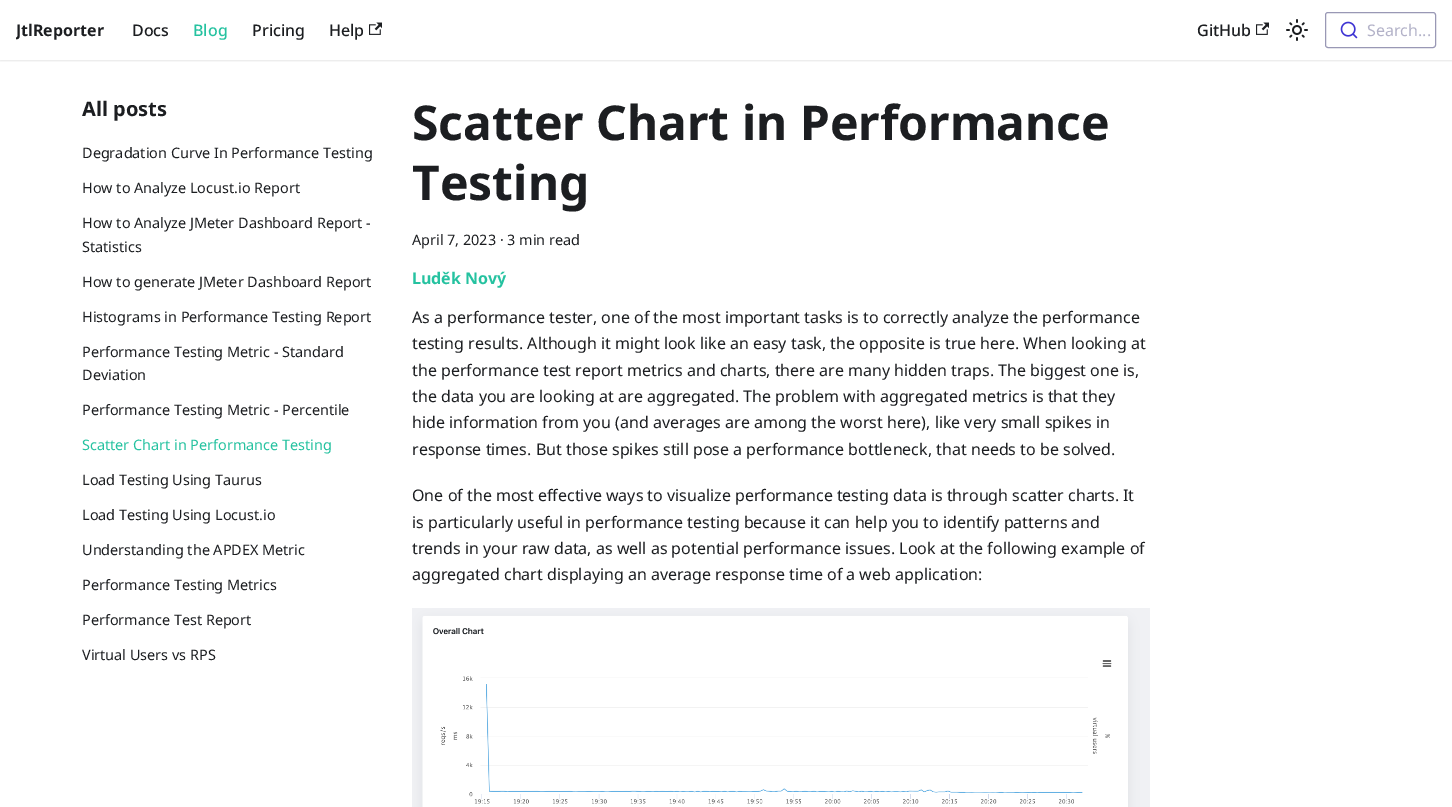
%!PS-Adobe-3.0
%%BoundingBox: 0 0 1452 807
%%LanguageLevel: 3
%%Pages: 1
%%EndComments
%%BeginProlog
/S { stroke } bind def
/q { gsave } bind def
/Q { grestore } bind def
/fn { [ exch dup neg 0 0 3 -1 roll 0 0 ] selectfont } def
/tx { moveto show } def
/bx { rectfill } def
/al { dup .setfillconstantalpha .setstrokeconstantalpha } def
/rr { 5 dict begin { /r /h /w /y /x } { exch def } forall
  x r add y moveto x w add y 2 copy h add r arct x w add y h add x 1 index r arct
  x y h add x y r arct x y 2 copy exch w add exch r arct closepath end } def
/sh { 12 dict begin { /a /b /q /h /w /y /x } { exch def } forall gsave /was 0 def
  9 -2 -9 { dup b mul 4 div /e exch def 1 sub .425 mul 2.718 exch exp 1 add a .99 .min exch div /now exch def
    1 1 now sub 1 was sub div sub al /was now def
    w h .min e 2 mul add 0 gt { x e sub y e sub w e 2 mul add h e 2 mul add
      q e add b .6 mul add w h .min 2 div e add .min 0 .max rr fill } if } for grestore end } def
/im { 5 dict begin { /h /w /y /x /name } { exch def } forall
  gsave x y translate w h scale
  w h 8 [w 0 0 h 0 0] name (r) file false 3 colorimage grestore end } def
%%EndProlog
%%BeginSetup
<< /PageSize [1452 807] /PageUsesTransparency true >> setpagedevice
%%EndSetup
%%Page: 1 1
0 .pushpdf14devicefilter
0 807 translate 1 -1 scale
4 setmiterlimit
1 setgray
0 0 1452 807 bx
q
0 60 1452 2 rectclip
0 setgray
0 1 1452 60 0 1 0.1 sh
Q
q
16 17 88 26 rectclip
/NotoSans-Bold 16 fn
0.11 0.118 0.129 setrgbcolor
(JtlReporter) 16 36 tx
Q
/NotoSans-Medium 16 fn
0.11 0.118 0.129 setrgbcolor
(Docs) 132 36 tx
0.145 0.761 0.627 setrgbcolor
(Blog) 193 36 tx
0.11 0.118 0.129 setrgbcolor
(Pricing) 252 36 tx
(Help) 329 36 tx
(image0.raw) 369 22 13 13 im
(GitHub) 1197 36 tx
(image0.raw) 1256 22 13 13 im
(image1.raw) 1286 19 22 22 im
0.6 0.596 0.71 setrgbcolor
1325.5 12.5 110 35 2.5 rr S
(image2.raw) 1340 21 18 18 im
/NotoSans-Regular 16 fn
0.702 0.698 0.784 setrgbcolor
(Search...) 1367 36 tx
/NotoSans-Bold 20 fn
0.11 0.118 0.129 setrgbcolor
(All posts) 82 116 tx
/NotoSans-Regular 14.4 fn
(Degradation Curve In Performance Testing) 82 158 tx
(How to Analyze Locust.io Report) 82 193 tx
(How to Analyze JMeter Dashboard Report -) 82 228 tx
(Statistics) 82 252 tx
(How to generate JMeter Dashboard Report) 82 287 tx
(Histograms in Performance Testing Report) 82 322 tx
(Performance Testing Metric - Standard) 82 357 tx
(Deviation) 82 380 tx
(Performance Testing Metric - Percentile) 82 415 tx
0.145 0.761 0.627 setrgbcolor
(Scatter Chart in Performance Testing) 82 450 tx
0.11 0.118 0.129 setrgbcolor
(Load Testing Using Taurus) 82 485 tx
(Load Testing Using Locust.io) 82 520 tx
(Understanding the APDEX Metric) 82 555 tx
(Performance Testing Metrics) 82 590 tx
(Performance Test Report) 82 625 tx
(Virtual Users vs RPS) 82 660 tx
/NotoSans-Bold 48 fn
(Scatter Chart in Performance) 412 140 tx
(Testing) 412 200 tx
/NotoSans-Regular 14.4 fn
(April 7, 2023 · 3 min read) 412 245 tx
/NotoSans-Bold 16 fn
0.145 0.761 0.627 setrgbcolor
(Luděk Nový) 412 284 tx
/NotoSans-Regular 16 fn
0.11 0.118 0.129 setrgbcolor
(As a performance tester, one of the most important tasks is to correctly analyze the performance) 412 323 tx
(testing results. Although it might look like an easy task, the opposite is true here. When looking at) 412 349 tx
(the performance test report metrics and charts, there are many hidden traps. The biggest one is,) 412 376 tx
(the data you are looking at are aggregated. The problem with aggregated metrics is that they) 412 402 tx
(hide information from you \(and averages are among the worst here\), like very small spikes in) 412 428 tx
(response times. But those spikes still pose a performance bottleneck, that needs to be solved.) 412 455 tx
(One of the most effective ways to visualize performance testing data is through scatter charts. It) 412 501 tx
(is particularly useful in performance testing because it can help you to identify patterns and) 412 528 tx
(trends in your raw data, as well as potential performance issues. Look at the following example of) 412 554 tx
(aggregated chart displaying an average response time of a web application:) 412 580 tx
(image3.raw) 412 608 738 199 im
.poppdf14devicefilter showpage
%%EOF
